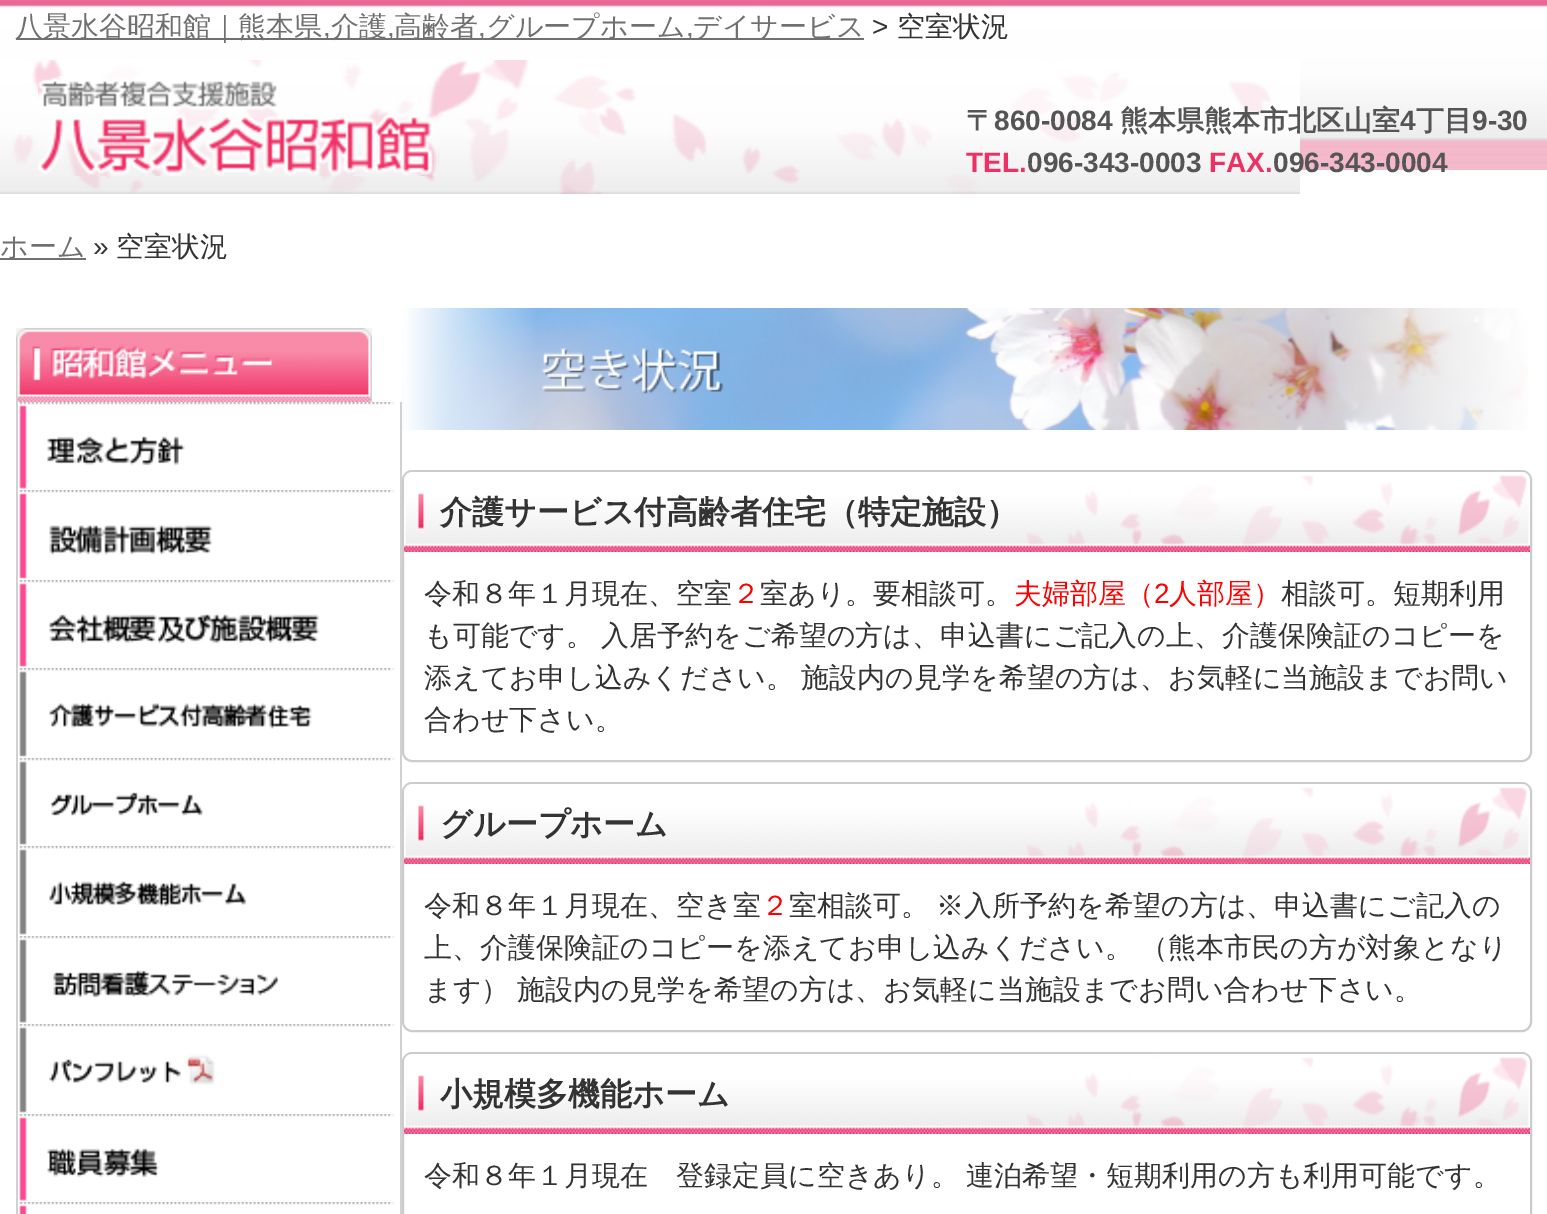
%!PS-Adobe-3.0
%%BoundingBox: 0 0 1547 1214
%%LanguageLevel: 3
%%Pages: 1
%%EndComments
%%BeginProlog
/m { moveto } bind def
/S { stroke } bind def
/w { setlinewidth } bind def
/fn { [ exch dup neg 0 0 3 -1 roll 0 0 ] selectfont } def
/tx { moveto show } def
/bx { rectfill } def
/al { dup .setfillconstantalpha .setstrokeconstantalpha } def
/rr { 5 dict begin { /r /h /w /y /x } { exch def } forall
  x r add y moveto x w add y 2 copy h add r arct x w add y h add x 1 index r arct
  x y h add x y r arct x y 2 copy exch w add exch r arct closepath end } def
/im { 5 dict begin { /h /w /y /x /name } { exch def } forall
  gsave x y translate w h scale
  w h 8 [w 0 0 h 0 0] name (r) file false 3 colorimage grestore end } def
%%EndProlog
%%BeginSetup
<< /PageSize [1547 1214] /PageUsesTransparency true >> setpagedevice
%%EndSetup
%%Page: 1 1
0 .pushpdf14devicefilter
0 1214 translate 1 -1 scale
4 setmiterlimit
1 setgray
0 0 1547 1214 bx
(image0.raw) 0 0 1547 170 im
0.1 al
0 0 1547 7 bx
1 al
0.443 0.439 0.443 setrgbcolor
16 38 848 2 bx
/WenQuanYiZenHei-Medium 28 fn
(八景水谷昭和館｜熊本県) 15 36 tx
(介護) 331 36 tx
(高齢者) 394 36 tx
(グループホーム) 486 36 tx
(デイサービス) 693 36 tx
/LiberationSans-Regular 28 fn
0.2 setgray
(>) 872 36 tx
/WenQuanYiZenHei-Medium 28 fn
(空室状況) 897 36 tx
/LiberationSans-Regular 28 fn
0.443 0.439 0.443 setrgbcolor
(,) 323 36 tx
(,) 387 36 tx
(,) 478 36 tx
(,) 686 36 tx
(image1.raw) 0 60 1300 134 im
(image2.raw) 38 76 400 100 im
/WenQuanYiZenHei-Bold 28 fn
0.333 setgray
(〒) 966 130 tx
/LiberationSans-Bold 28 fn
(860-0084) 994 130 tx
/WenQuanYiZenHei-Bold 28 fn
(熊本県熊本市北区山室) 1120 130 tx
/LiberationSans-Bold 28 fn
(4) 1400 130 tx
/WenQuanYiZenHei-Bold 28 fn
(丁目) 1416 130 tx
/LiberationSans-Bold 28 fn
(9-30) 1472 130 tx
0.933 0.192 0.396 setrgbcolor
(TEL.) 966 172 tx
0.333 setgray
(096-343-0003) 1027 172 tx
0.933 0.192 0.396 setrgbcolor
(FAX.) 1209 172 tx
0.333 setgray
(096-343-0004) 1273 172 tx
0.443 0.439 0.443 setrgbcolor
0 258 86 2 bx
/WenQuanYiZenHei-Medium 28 fn
(ホーム) 0 256 tx
/LiberationSans-Regular 28 fn
0.2 setgray
(») 93 256 tx
/WenQuanYiZenHei-Medium 28 fn
(空室状況) 116 256 tx
(image3.raw) 16 328 356 74 im
0.82 setgray
400 402 2 812 bx
16 402 2 812 bx
(image4.raw) 19 402 376 87 im
(image5.raw) 19 490 376 89 im
(image6.raw) 19 580 376 87 im
(image7.raw) 19 668 376 89 im
(image8.raw) 19 758 376 87 im
(image9.raw) 19 846 376 89 im
(image10.raw) 19 936 376 87 im
(image11.raw) 19 1024 376 89 im
(image12.raw) 19 1114 376 87 im
(image13.raw) 19 1202 376 12 im
(image14.raw) 402 308 1126 122 im
0.8 setgray
2 w
403 471 1128 290 9 rr S
(image15.raw) 404 472 1126 80 im
/WenQuanYiZenHei-Bold 32 fn
0.2 setgray
(介護サービス付高齢者住宅（特定施設）) 440 523 tx
/WenQuanYiZenHei-Medium 28 fn
(令和８年１月現在、空室) 424 603 tx
1 0 0 setrgbcolor
(２) 732 603 tx
0.2 setgray
(室あり。要相談可。) 760 603 tx
1 0 0 setrgbcolor
(夫婦部屋（) 1014 603 tx
/LiberationSans-Regular 28 fn
(2) 1154 603 tx
/WenQuanYiZenHei-Medium 28 fn
(人部屋）) 1169 603 tx
0.2 setgray
(相談可。短期利用) 1281 603 tx
424 645 m -1 0 32 (も可能です。 入居予約をご希望の方は、申込書にご記入の上、介護保険証のコピーを) widthshow
424 687 m -1 0 32 (添えてお申し込みください。 施設内の見学を希望の方は、お気軽に当施設までお問い) widthshow
(合わせ下さい。) 424 729 tx
0.8 setgray
403 783 1128 248 9 rr S
(image15.raw) 404 784 1126 80 im
/WenQuanYiZenHei-Bold 32 fn
0.2 setgray
(グループホーム) 440 835 tx
/WenQuanYiZenHei-Medium 28 fn
(令和８年１月現在、空き室) 424 915 tx
1 0 0 setrgbcolor
(２) 761 915 tx
0.2 setgray
789 915 m -1 0 32 (室相談可。 ※入所予約を希望の方は、申込書にご記入の) widthshow
424 957 m -1 0 32 (上、介護保険証のコピーを添えてお申し込みください。 （熊本市民の方が対象となり) widthshow
424 999 m -1 0 32 (ます） 施設内の見学を希望の方は、お気軽に当施設までお問い合わせ下さい。) widthshow
0.8 setgray
403 1053 1128 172 9 rr S
(image15.raw) 404 1054 1126 80 im
/WenQuanYiZenHei-Bold 32 fn
0.2 setgray
(小規模多機能ホーム) 440 1105 tx
/WenQuanYiZenHei-Medium 28 fn
424 1185 m -1 0 32 (令和８年１月現在　登録定員に空きあり。 連泊希望・短期利用の方も利用可能です。) widthshow
.poppdf14devicefilter showpage
%%EOF
